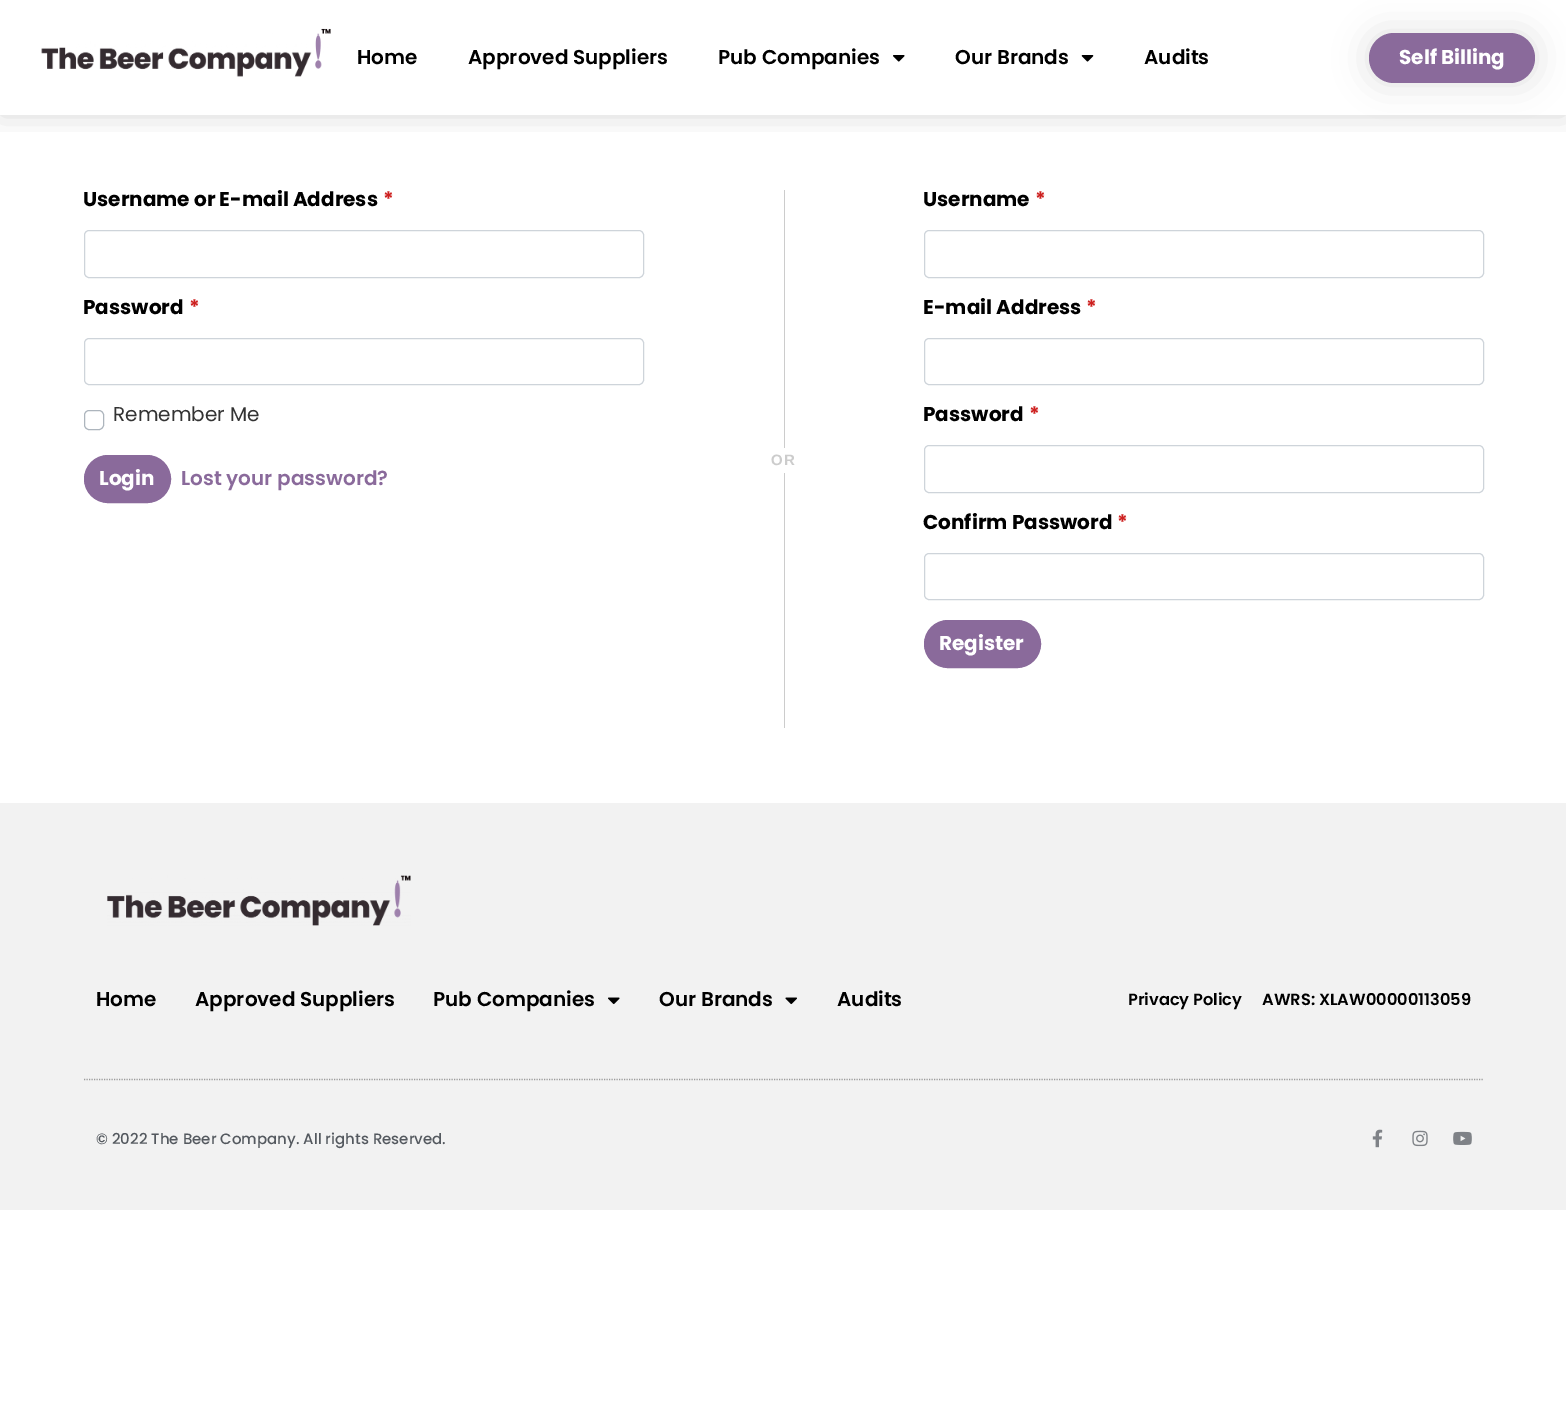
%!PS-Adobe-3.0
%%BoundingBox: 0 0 1566 1428
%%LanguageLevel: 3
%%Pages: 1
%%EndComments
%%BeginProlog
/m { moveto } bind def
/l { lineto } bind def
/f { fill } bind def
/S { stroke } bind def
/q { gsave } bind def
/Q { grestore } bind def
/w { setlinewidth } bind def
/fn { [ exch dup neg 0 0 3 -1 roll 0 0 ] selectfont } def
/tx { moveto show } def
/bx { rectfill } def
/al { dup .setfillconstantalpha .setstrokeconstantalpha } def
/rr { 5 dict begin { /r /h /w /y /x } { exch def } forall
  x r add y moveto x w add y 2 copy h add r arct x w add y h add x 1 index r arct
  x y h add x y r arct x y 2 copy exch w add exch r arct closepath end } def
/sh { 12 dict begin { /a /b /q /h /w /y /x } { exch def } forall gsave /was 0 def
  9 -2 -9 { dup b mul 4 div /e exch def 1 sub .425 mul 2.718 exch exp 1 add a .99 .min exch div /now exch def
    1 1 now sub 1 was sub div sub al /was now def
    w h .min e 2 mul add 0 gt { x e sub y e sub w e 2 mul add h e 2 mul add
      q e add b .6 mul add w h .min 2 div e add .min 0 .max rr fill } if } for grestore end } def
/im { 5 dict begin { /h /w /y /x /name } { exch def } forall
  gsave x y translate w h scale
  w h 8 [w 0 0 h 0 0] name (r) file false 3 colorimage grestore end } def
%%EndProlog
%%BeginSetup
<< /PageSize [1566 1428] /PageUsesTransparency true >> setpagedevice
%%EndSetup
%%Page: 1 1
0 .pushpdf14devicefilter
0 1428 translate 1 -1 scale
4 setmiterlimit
1 setgray
0 0 1566 1428 bx
q
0 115 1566 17 rectclip
0 setgray
0 0 1566 115 0 15 0.15 sh
Q
(image0.raw) 41 28 290 49 im
/Poppins-SemiBold 20 fn
0 setgray
(Home) 357 64 tx
(Approved Suppliers) 468 64 tx
(Pub Companies) 718 64 tx
(image1.raw) 893 55 12 7 im
(Our Brands) 955 64 tx
(image2.raw) 1081 55 13 7 im
(Audits) 1144 64 tx
1369 33 166 50 25 17 0.12 sh
0.541 0.416 0.608 setrgbcolor
1369 33 166 50 25 rr f
/Poppins-Bold 20 fn
1 setgray
(Self Billing) 1399 64 tx
0 setgray
(Username or E-mail Address) 83 206 tx
0.804 0.125 0.122 setrgbcolor
(*) 383 206 tx
0.808 0.831 0.855 setrgbcolor
84.5 230.5 559 47 4.5 rr S
0 setgray
(Password) 83 314 tx
0.804 0.125 0.122 setrgbcolor
(*) 189 314 tx
0.808 0.831 0.855 setrgbcolor
84.5 338.5 559 46 4.5 rr S
0.678 0.71 0.741 setrgbcolor
84.5 410.5 19 19 4.5 rr S
/Poppins-Regular 20 fn
0.2 setgray
(Remember Me) 113 421 tx
0.541 0.416 0.608 setrgbcolor
84.5 455.5 86 47 23.5 rr q f Q
S
/Poppins-Bold 20 fn
1 setgray
(Login) 99 485 tx
/Poppins-SemiBold 20 fn
0.541 0.416 0.608 setrgbcolor
(Lost your password?) 181 485 tx
0.8 setgray
784 190 1 538 bx
1 setgray
784 448 1 25 bx
/LiberationSans-Bold 15 fn
0.8 setgray
771 465 m 1 0 (OR) ashow
/Poppins-Bold 20 fn
0 setgray
(Username) 923 206 tx
0.804 0.125 0.122 setrgbcolor
(*) 1035 206 tx
0.808 0.831 0.855 setrgbcolor
924.5 230.5 559 47 4.5 rr S
0 setgray
(E-mail Address) 923 314 tx
0.804 0.125 0.122 setrgbcolor
(*) 1086 314 tx
0.808 0.831 0.855 setrgbcolor
924.5 338.5 559 46 4.5 rr S
0 setgray
(Password) 923 421 tx
0.804 0.125 0.122 setrgbcolor
(*) 1029 421 tx
0.808 0.831 0.855 setrgbcolor
924.5 445.5 559 47 4.5 rr S
0 setgray
(Confirm Password) 923 529 tx
0.804 0.125 0.122 setrgbcolor
(*) 1117 529 tx
0.808 0.831 0.855 setrgbcolor
924.5 553.5 559 46 4.5 rr S
0.541 0.416 0.608 setrgbcolor
924.5 620.5 116 47 23.5 rr q f Q
S
1 setgray
(Register) 939 650 tx
0.949 setgray
0 803 1566 407 bx
(image3.raw) 107 875 304 51 im
0.608 setgray
1.2 w
[1.25 1.25] 0 setdash
84 1079.5 m 1484 1079.5 l S
/Poppins-SemiBold 20 fn
0 setgray
(Home) 96 1006 tx
(Approved Suppliers) 195 1006 tx
(Pub Companies) 433 1006 tx
(image4.raw) 608 997 12 8 im
(Our Brands) 659 1006 tx
(image5.raw) 785 997 12 8 im
(Audits) 837 1006 tx
/Poppins-SemiBold 16.25 fn
(Privacy Policy) 1128 1005 tx
(AWRS: XLAW00000113059) 1262 1005 tx
/Poppins-Medium 15 fn
0.329 0.349 0.373 setrgbcolor
(© 2022 The Beer Company. All rights Reserved.) 96 1144 tx
(image6.raw) 1372 1129 11 19 im
(image7.raw) 1412 1130 16 17 im
(image8.raw) 1453 1131 19 14 im
.poppdf14devicefilter showpage
%%EOF
